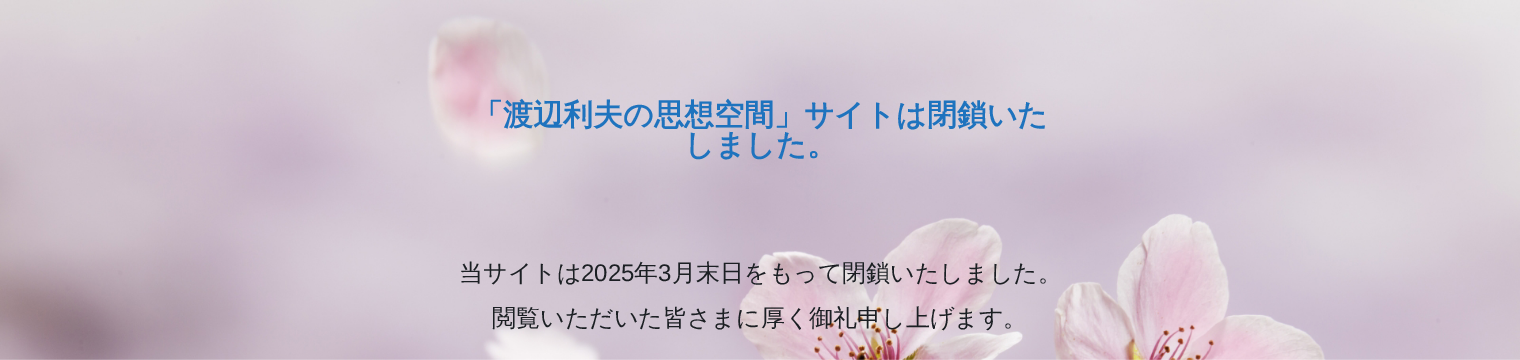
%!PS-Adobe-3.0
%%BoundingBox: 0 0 1520 360
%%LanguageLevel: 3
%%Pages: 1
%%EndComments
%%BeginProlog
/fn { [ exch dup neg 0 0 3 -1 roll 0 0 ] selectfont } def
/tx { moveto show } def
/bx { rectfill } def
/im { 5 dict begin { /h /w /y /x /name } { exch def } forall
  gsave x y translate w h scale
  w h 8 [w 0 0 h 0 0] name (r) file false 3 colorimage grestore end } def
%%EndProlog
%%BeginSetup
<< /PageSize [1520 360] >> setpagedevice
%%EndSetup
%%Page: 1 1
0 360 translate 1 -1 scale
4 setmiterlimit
1 setgray
0 0 1520 360 bx
(image0.raw) 0 0 1520 360 im
/WenQuanYiZenHei-Bold 30 fn
0.118 0.451 0.745 setrgbcolor
(「渡辺利夫の思想空間」サイトは閉鎖いた) 473 125 tx
(しました。) 684 155 tx
/WenQuanYiZenHei-Medium 24 fn
0.106 0.122 0.137 setrgbcolor
(当サイトは) 459 281 tx
/LiberationSans-Regular 24 fn
(2025) 581 281 tx
/WenQuanYiZenHei-Medium 24 fn
(年) 634 281 tx
/LiberationSans-Regular 24 fn
(3) 658 281 tx
/WenQuanYiZenHei-Medium 24 fn
(月末日をもって閉鎖いたしました。) 672 281 tx
(閲覧いただいた皆さまに厚く御礼申し上げます。) 492 326 tx
showpage
%%EOF
